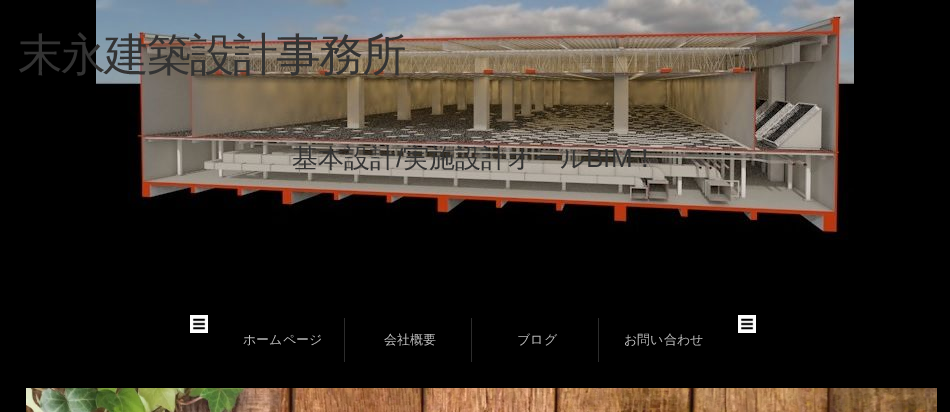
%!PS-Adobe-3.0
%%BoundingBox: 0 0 950 412
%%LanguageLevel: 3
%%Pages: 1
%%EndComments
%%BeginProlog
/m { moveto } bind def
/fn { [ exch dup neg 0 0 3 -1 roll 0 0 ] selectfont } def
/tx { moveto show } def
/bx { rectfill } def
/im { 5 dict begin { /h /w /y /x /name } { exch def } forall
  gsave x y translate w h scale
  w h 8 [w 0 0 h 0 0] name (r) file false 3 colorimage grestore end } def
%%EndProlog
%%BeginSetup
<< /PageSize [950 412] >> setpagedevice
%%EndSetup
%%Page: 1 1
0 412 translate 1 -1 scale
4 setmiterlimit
0 setgray
0 0 950 412 bx
(image0.raw) 96 0 758 240 im
/WenQuanYiZenHei-Medium 44.75 fn
0.2 setgray
18 70 m -1.75 0 (末永建築設計事務所) ashow
/WenQuanYiZenHei-Medium 26 fn
(基本設計) 292 167 tx
/LiberationSans-Regular 26 fn
(/) 396 167 tx
/WenQuanYiZenHei-Medium 26 fn
(実施設計オール) 403 167 tx
/LiberationSans-Regular 26 fn
(BIM) 586 167 tx
/WenQuanYiZenHei-Medium 26 fn
(！) 632 167 tx
(image1.raw) 190 315 18 18 im
(image1.raw) 738 315 18 18 im
/WenQuanYiZenHei-Medium 13 fn
0.749 setgray
(ホームページ) 243 344 tx
0.173 setgray
344 318 1 44 bx
0.749 setgray
(会社概要) 384 344 tx
0.173 setgray
471 318 1 44 bx
0.749 setgray
(ブログ) 517 344 tx
0.173 setgray
598 318 1 44 bx
0.749 setgray
(お問い合わせ) 624 344 tx
(image2.raw) 26 388 911 24 im
showpage
%%EOF
